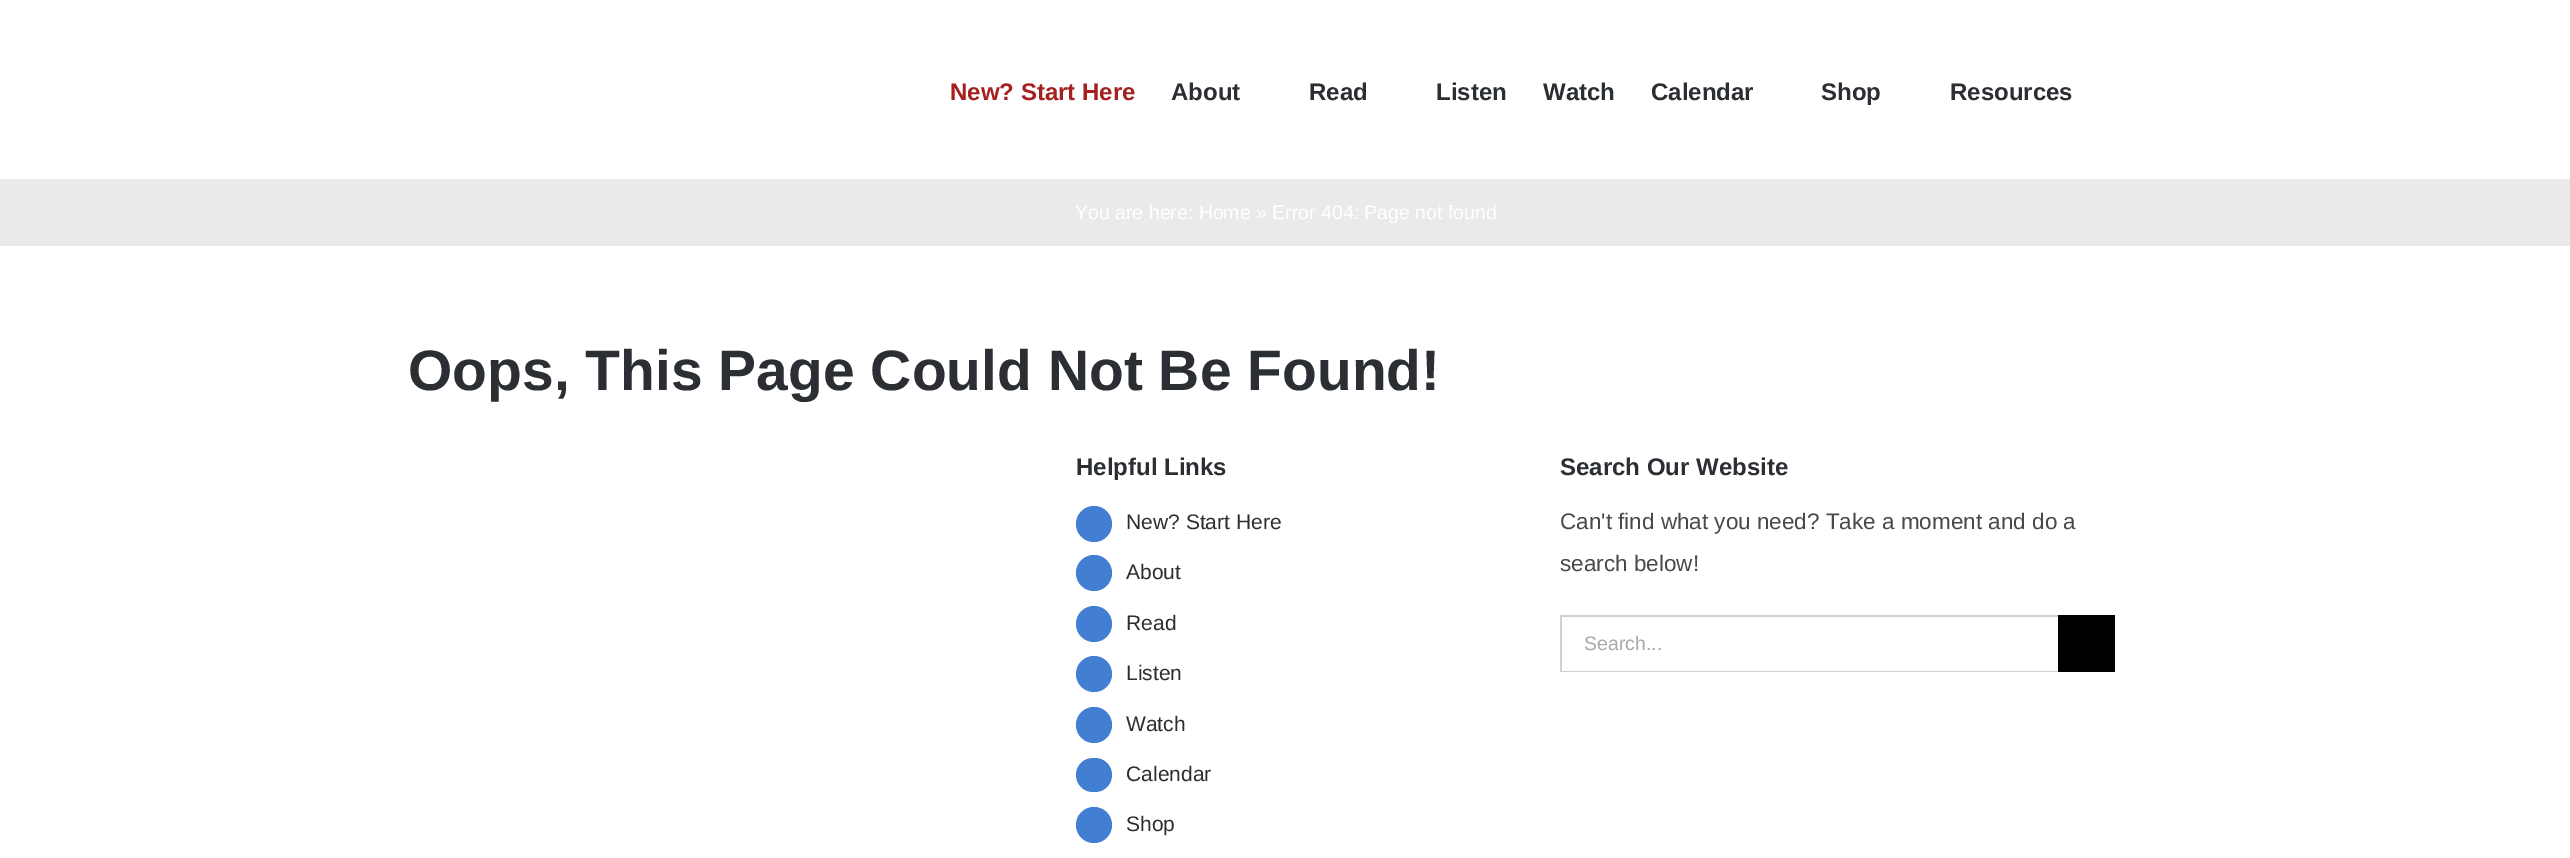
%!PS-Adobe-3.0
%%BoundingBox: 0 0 2570 858
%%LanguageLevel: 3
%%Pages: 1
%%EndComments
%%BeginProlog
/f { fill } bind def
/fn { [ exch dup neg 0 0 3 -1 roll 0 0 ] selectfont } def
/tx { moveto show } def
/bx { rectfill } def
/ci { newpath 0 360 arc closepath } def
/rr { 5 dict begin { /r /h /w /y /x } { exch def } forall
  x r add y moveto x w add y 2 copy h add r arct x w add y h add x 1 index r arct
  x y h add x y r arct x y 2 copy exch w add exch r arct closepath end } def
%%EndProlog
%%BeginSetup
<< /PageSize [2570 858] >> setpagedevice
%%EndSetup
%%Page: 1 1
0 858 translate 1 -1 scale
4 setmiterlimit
1 setgray
0 0 2570 858 bx
/LiberationSans-Bold 24 fn
0.647 0.125 0.125 setrgbcolor
(New? Start Here) 950 100 tx
0.169 0.18 0.196 setrgbcolor
(About) 1171 100 tx
(Read) 1309 100 tx
(Listen) 1436 100 tx
(Watch) 1543 100 tx
(Calendar) 1651 100 tx
(Shop) 1821 100 tx
(Resources) 1950 100 tx
0.918 setgray
0 179 2570 67 bx
/LiberationSans-Regular 19.5 fn
1 setgray
(You are here: Home » Error 404: Page not found) 1075 219 tx
/LiberationSans-Bold 57 fn
0.169 0.18 0.196 setrgbcolor
(Oops, This Page Could Not Be Found!) 408 390 tx
/LiberationSans-Bold 24 fn
(Helpful Links) 1076 475 tx
0.259 0.494 0.82 setrgbcolor
1094 524 18 ci f
/LiberationSans-Regular 21 fn
0.169 0.18 0.196 setrgbcolor
(New? Start Here) 1126 529 tx
0.259 0.494 0.82 setrgbcolor
1094 573 18 ci f
0.169 0.18 0.196 setrgbcolor
(About) 1126 579 tx
0.259 0.494 0.82 setrgbcolor
1094 624 18 ci f
0.169 0.18 0.196 setrgbcolor
(Read) 1126 630 tx
0.259 0.494 0.82 setrgbcolor
1094 674 18 ci f
0.169 0.18 0.196 setrgbcolor
(Listen) 1126 680 tx
0.259 0.494 0.82 setrgbcolor
1094 725 18 ci f
0.169 0.18 0.196 setrgbcolor
(Watch) 1126 731 tx
0.259 0.494 0.82 setrgbcolor
1076 758 36 34 17 rr f
0.169 0.18 0.196 setrgbcolor
(Calendar) 1126 781 tx
0.259 0.494 0.82 setrgbcolor
1094 825 18 ci f
0.169 0.18 0.196 setrgbcolor
(Shop) 1126 831 tx
/LiberationSans-Bold 24 fn
(Search Our Website) 1560 475 tx
/LiberationSans-Regular 22.5 fn
0.286 setgray
(Can't find what you need? Take a moment and do a) 1560 529 tx
(search below!) 1560 571 tx
0.824 setgray
1560 615 498 2 bx
1560 671 498 1 bx
1560 615 2 57 bx
/LiberationSans-Regular 19.5 fn
0.667 0.663 0.663 setrgbcolor
(Search...) 1584 650 tx
0 setgray
2058 615 57 57 bx
showpage
%%EOF
